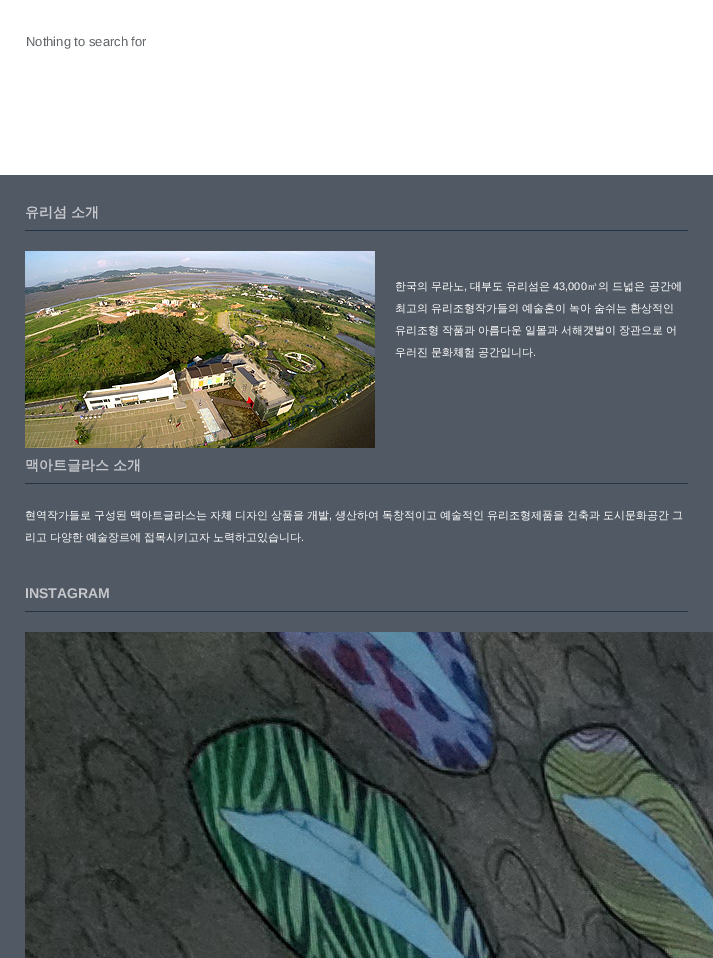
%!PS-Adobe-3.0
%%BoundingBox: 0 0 713 958
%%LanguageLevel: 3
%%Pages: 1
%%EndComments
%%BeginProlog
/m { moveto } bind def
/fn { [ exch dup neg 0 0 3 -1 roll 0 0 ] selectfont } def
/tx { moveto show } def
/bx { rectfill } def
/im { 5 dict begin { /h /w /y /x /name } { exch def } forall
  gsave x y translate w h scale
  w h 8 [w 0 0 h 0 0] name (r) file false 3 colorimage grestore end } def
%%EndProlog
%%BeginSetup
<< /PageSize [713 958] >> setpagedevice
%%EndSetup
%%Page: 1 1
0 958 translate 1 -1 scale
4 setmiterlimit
1 setgray
0 0 713 958 bx
/LiberationSans-Regular 13 fn
0.376 0.396 0.412 setrgbcolor
(Nothing to search for) 26 46 tx
0.314 0.349 0.392 setrgbcolor
0 175 713 783 bx
0.141 0.2 0.263 setrgbcolor
25 230 663 1 bx
/WenQuanYiZenHei-Bold 14 fn
0.773 0.78 0.796 setrgbcolor
(유리섬 소개) 25 217 tx
(image0.raw) 25 251 350 197 im
/WenQuanYiZenHei-Medium 11 fn
1 setgray
(한국의 무라노) 395 290 tx
/LiberationSans-Regular 11 fn
(,) 464 290 tx
/WenQuanYiZenHei-Medium 11 fn
(대부도 유리섬은) 470 290 tx
/LiberationSans-Regular 11 fn
(43,000) 553 290 tx
/WenQuanYiZenHei-Medium 11 fn
(㎡의 드넓은 공간에) 587 290 tx
395 312 m -0.25 0 32 (최고의 유리조형작가들의 예술혼이 녹아 숨쉬는 환상적인) widthshow
395 334 m -0.25 0 32 (유리조형 작품과 아름다운 일몰과 서해갯벌이 장관으로 어) widthshow
395 356 m -0.25 0 32 (우러진 문화체험 공간입니다) widthshow
/LiberationSans-Regular 11 fn
(.) 533 356 tx
0.141 0.2 0.263 setrgbcolor
25 483 663 1 bx
/WenQuanYiZenHei-Bold 14 fn
0.773 0.78 0.796 setrgbcolor
(맥아트글라스 소개) 25 470 tx
/WenQuanYiZenHei-Medium 11 fn
1 setgray
25 519 m -0.25 0 32 (현역작가들로 구성된 맥아트글라스는 자체 디자인 상품을 개발) widthshow
/LiberationSans-Regular 11 fn
(,) 329 519 tx
/WenQuanYiZenHei-Medium 11 fn
335 519 m -0.25 0 32 (생산하여 독창적이고 예술적인 유리조형제품을 건축과 도시문화공간 그) widthshow
25 541 m -0.25 0 32 (리고 다양한 예술장르에 접목시키고자 노력하고있습니다) widthshow
/LiberationSans-Regular 11 fn
(.) 301 541 tx
0.141 0.2 0.263 setrgbcolor
25 611 663 1 bx
/LiberationSans-Bold 14 fn
0.773 0.78 0.796 setrgbcolor
(INSTAGRAM) 25 598 tx
(image1.raw) 25 632 688 326 im
showpage
%%EOF
